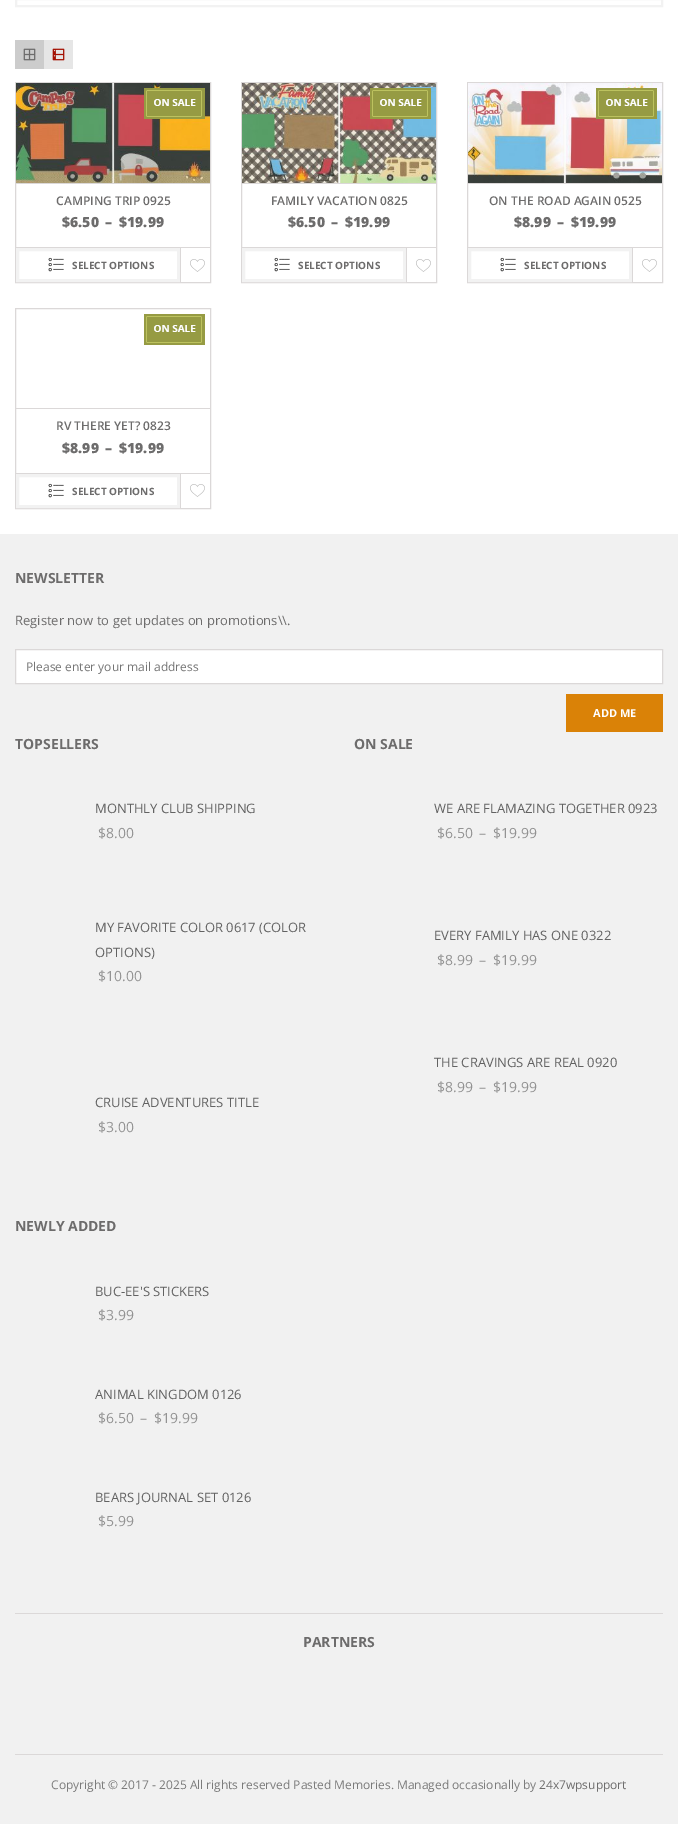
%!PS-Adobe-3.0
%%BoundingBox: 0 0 678 1824
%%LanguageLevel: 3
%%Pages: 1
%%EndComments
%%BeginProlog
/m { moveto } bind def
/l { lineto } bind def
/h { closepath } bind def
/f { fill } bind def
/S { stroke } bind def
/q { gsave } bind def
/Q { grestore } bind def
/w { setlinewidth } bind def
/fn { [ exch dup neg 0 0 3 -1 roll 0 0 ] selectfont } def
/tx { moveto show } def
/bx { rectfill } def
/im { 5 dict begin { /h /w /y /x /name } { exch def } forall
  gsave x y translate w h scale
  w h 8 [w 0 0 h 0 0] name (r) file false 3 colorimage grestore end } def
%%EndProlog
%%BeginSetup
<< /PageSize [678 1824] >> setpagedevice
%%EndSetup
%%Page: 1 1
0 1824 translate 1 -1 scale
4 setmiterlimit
1 setgray
0 0 678 1824 bx
0.949 setgray
2 w
16 -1 646 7 rectstroke
0.8 setgray
15 40 29 29 bx
(image0.raw) 23 48 13 13 im
0.902 setgray
44 40 29 29 bx
(image1.raw) 52 48 13 13 im
0.859 0.847 0.847 setrgbcolor
1 w
15.5 82.5 195 200 rectstroke
(image2.raw) 16 83 194 100 im
(image3.raw) 144 88 61 31 im
16 183 194 1 bx
/OpenSans-SemiBold 12 fn
0.427 0.424 0.424 setrgbcolor
(CAMPING TRIP 0925) 56 205 tx
/OpenSans-ExtraBold 14 fn
($6.50) 62 227 tx
(–) 105 227 tx
($19.99) 119 227 tx
0.859 0.847 0.847 setrgbcolor
16 247 194 1 bx
0.949 setgray
3 w
17.5 249.5 161 31 rectstroke
(image4.raw) 48 257 16 15 im
/OpenSans-Bold 10 fn
0.427 0.424 0.424 setrgbcolor
(SELECT OPTIONS) 72 269 tx
0.859 0.847 0.847 setrgbcolor
180 248 1 34 bx
(image5.raw) 190 259 15 13 im
1 w
241.5 82.5 195 200 rectstroke
(image6.raw) 242 83 194 100 im
(image3.raw) 370 88 61 31 im
242 183 194 1 bx
/OpenSans-SemiBold 12 fn
0.427 0.424 0.424 setrgbcolor
(FAMILY VACATION 0825) 271 205 tx
/OpenSans-ExtraBold 14 fn
($6.50) 288 227 tx
(–) 331 227 tx
($19.99) 345 227 tx
0.859 0.847 0.847 setrgbcolor
242 247 194 1 bx
0.949 setgray
3 w
243.5 249.5 161 31 rectstroke
(image4.raw) 274 257 16 15 im
/OpenSans-Bold 10 fn
0.427 0.424 0.424 setrgbcolor
(SELECT OPTIONS) 298 269 tx
0.859 0.847 0.847 setrgbcolor
406 248 1 34 bx
(image5.raw) 416 259 15 13 im
1 w
467.5 82.5 195 200 rectstroke
(image7.raw) 468 83 194 100 im
(image3.raw) 596 88 61 31 im
468 183 194 1 bx
/OpenSans-SemiBold 12 fn
0.427 0.424 0.424 setrgbcolor
(ON THE ROAD AGAIN 0525) 489 205 tx
/OpenSans-ExtraBold 14 fn
($8.99) 514 227 tx
(–) 557 227 tx
($19.99) 571 227 tx
0.859 0.847 0.847 setrgbcolor
468 247 194 1 bx
0.949 setgray
3 w
469.5 249.5 161 31 rectstroke
(image4.raw) 500 257 16 15 im
/OpenSans-Bold 10 fn
0.427 0.424 0.424 setrgbcolor
(SELECT OPTIONS) 524 269 tx
0.859 0.847 0.847 setrgbcolor
632 248 1 34 bx
(image5.raw) 642 259 15 13 im
1 w
15.5 308.5 195 200 rectstroke
(image3.raw) 144 314 61 31 im
16 408 194 1 bx
/OpenSans-SemiBold 12 fn
0.427 0.424 0.424 setrgbcolor
(RV THERE YET? 0823) 56 430 tx
/OpenSans-ExtraBold 14 fn
($8.99) 62 453 tx
(–) 105 453 tx
($19.99) 119 453 tx
0.859 0.847 0.847 setrgbcolor
16 473 194 1 bx
0.949 setgray
3 w
17.5 475.5 161 31 rectstroke
(image4.raw) 48 483 16 15 im
/OpenSans-Bold 10 fn
0.427 0.424 0.424 setrgbcolor
(SELECT OPTIONS) 72 495 tx
0.859 0.847 0.847 setrgbcolor
180 474 1 34 bx
(image5.raw) 190 484 15 13 im
0.945 setgray
0 534 678 1290 bx
/OpenSans-Bold 14 fn
0.427 0.424 0.424 setrgbcolor
(NEWSLETTER) 15 583 tx
/OpenSans-Regular 13 fn
(Register now to get updates on promotions\\\\.) 15 625 tx
1 setgray
15.5 649.5 m 662.5 649.5 l 662.5 683.5 l 15.5 683.5 l h q f Q
0.859 0.847 0.847 setrgbcolor
1 w
S
/OpenSans-Regular 12 fn
0.459 setgray
(Please enter your mail address) 26 671 tx
0.855 0.51 0.027 setrgbcolor
566 694 97 38 bx
/OpenSans-Bold 11 fn
1 setgray
(ADD ME) 593 717 tx
/OpenSans-Bold 14 fn
0.427 0.424 0.424 setrgbcolor
(TOPSELLERS) 15 749 tx
/OpenSans-Regular 13 fn
0.384 setgray
(MONTHLY CLUB SHIPPING) 95 813 tx
/OpenSans-Regular 14 fn
0.576 setgray
($8.00) 98 838 tx
/OpenSans-Regular 13 fn
0.384 setgray
(MY FAVORITE COLOR 0617 \(COLOR) 95 932 tx
(OPTIONS\)) 95 957 tx
/OpenSans-Regular 14 fn
0.576 setgray
($10.00) 98 981 tx
/OpenSans-Regular 13 fn
0.384 setgray
(CRUISE ADVENTURES TITLE) 95 1107 tx
/OpenSans-Regular 14 fn
0.576 setgray
($3.00) 98 1132 tx
/OpenSans-Bold 14 fn
0.427 0.424 0.424 setrgbcolor
(ON SALE) 354 749 tx
/OpenSans-Regular 13 fn
0.384 setgray
(WE ARE FLAMAZING TOGETHER 0923) 434 813 tx
/OpenSans-Regular 14 fn
0.576 setgray
($6.50) 437 838 tx
(–) 479 838 tx
($19.99) 493 838 tx
/OpenSans-Regular 13 fn
0.384 setgray
(EVERY FAMILY HAS ONE 0322) 434 940 tx
/OpenSans-Regular 14 fn
0.576 setgray
($8.99) 437 965 tx
(–) 479 965 tx
($19.99) 493 965 tx
/OpenSans-Regular 13 fn
0.384 setgray
(THE CRAVINGS ARE REAL 0920) 434 1067 tx
/OpenSans-Regular 14 fn
0.576 setgray
($8.99) 437 1092 tx
(–) 479 1092 tx
($19.99) 493 1092 tx
/OpenSans-Bold 14 fn
0.427 0.424 0.424 setrgbcolor
(NEWLY ADDED) 15 1231 tx
/OpenSans-Regular 13 fn
0.384 setgray
(BUC-EE'S STICKERS) 95 1296 tx
/OpenSans-Regular 14 fn
0.576 setgray
($3.99) 98 1320 tx
/OpenSans-Regular 13 fn
0.384 setgray
(ANIMAL KINGDOM 0126) 95 1399 tx
/OpenSans-Regular 14 fn
0.576 setgray
($6.50) 98 1423 tx
(–) 140 1423 tx
($19.99) 154 1423 tx
/OpenSans-Regular 13 fn
0.384 setgray
(BEARS JOURNAL SET 0126) 95 1502 tx
/OpenSans-Regular 14 fn
0.576 setgray
($5.99) 98 1526 tx
0.859 0.847 0.847 setrgbcolor
15 1613 648 1 bx
15 1754 648 1 bx
/OpenSans-Bold 14 fn
0.427 0.424 0.424 setrgbcolor
(PARTNERS) 303 1647 tx
/OpenSans-Regular 12 fn
0.482 setgray
(Copyright © 2017 - 2025 All rights reserved Pasted Memories. Managed occasionally by) 51 1789 tx
0.427 0.424 0.424 setrgbcolor
(24x7wpsupport) 539 1789 tx
showpage
%%EOF
